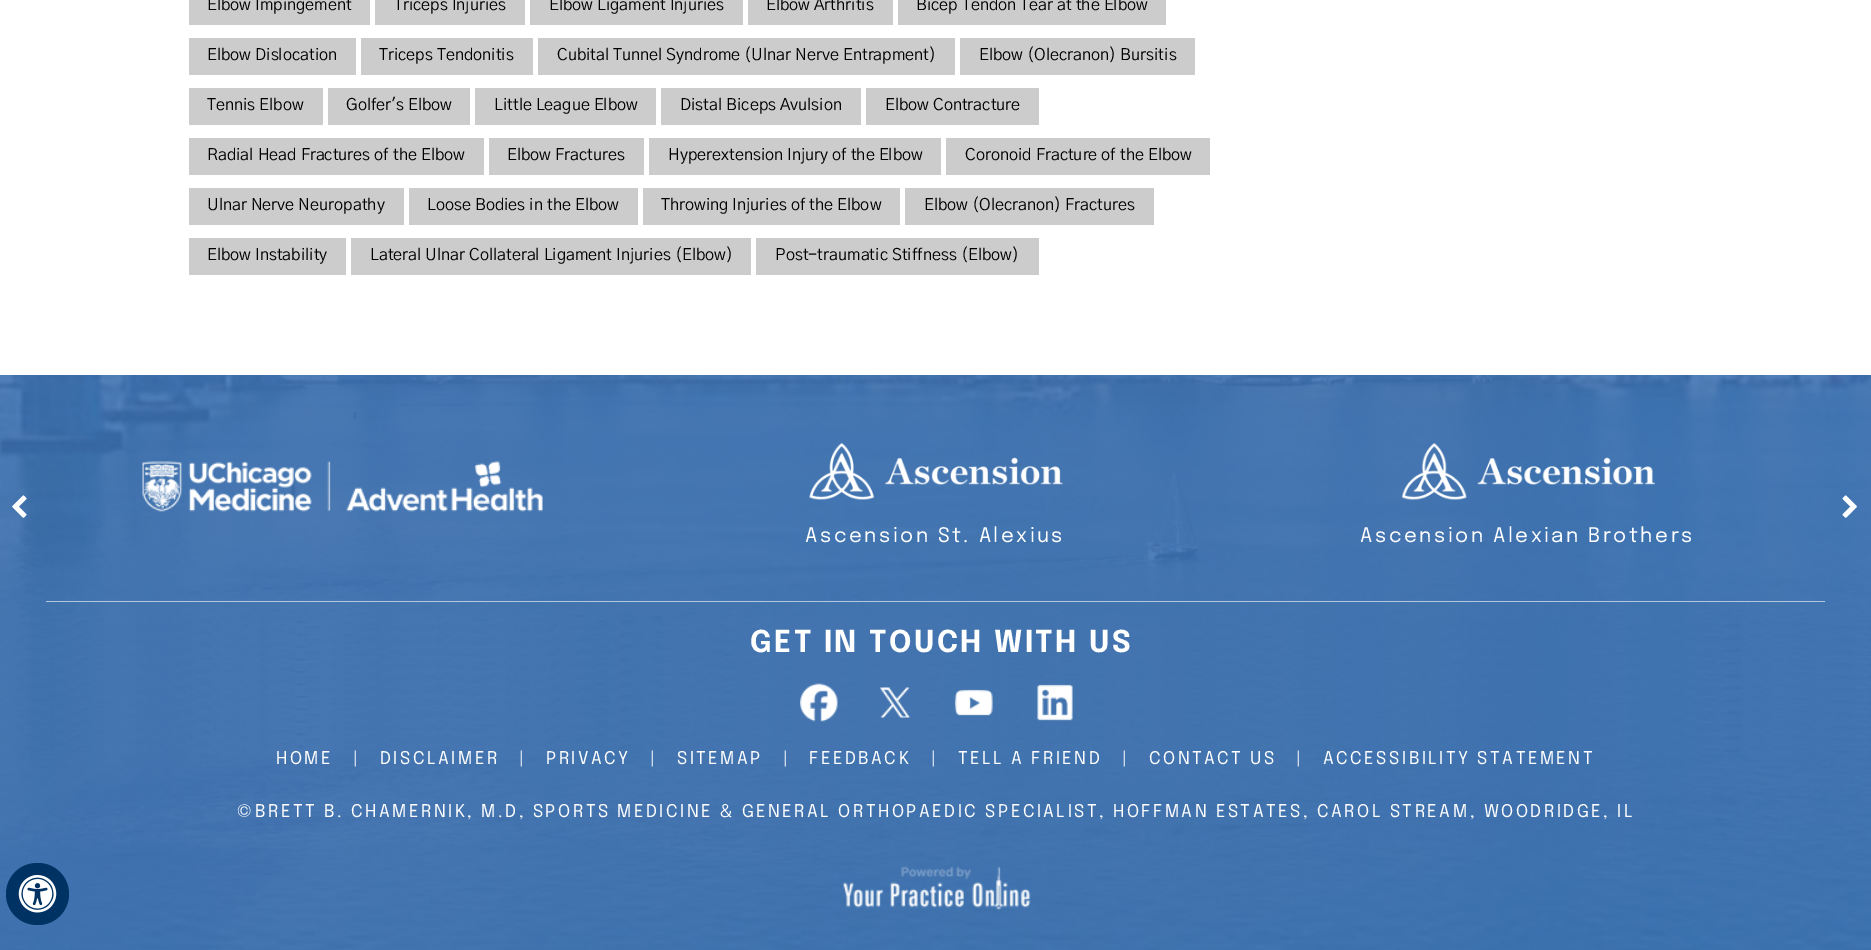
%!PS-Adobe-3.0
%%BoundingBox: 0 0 1871 950
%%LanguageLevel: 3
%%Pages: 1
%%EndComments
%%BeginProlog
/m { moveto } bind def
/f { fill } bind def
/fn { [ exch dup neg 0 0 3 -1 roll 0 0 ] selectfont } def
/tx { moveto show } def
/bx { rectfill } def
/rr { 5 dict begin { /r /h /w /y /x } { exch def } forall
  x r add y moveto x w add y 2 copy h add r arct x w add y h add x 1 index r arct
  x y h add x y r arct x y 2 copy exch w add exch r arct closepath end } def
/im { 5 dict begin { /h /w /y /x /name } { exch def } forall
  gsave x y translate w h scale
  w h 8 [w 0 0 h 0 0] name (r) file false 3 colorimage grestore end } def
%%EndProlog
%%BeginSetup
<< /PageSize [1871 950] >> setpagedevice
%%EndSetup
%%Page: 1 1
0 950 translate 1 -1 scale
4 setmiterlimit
1 setgray
0 0 1871 950 bx
0.8 setgray
189 0 181 25 bx
/GothicA1-Regular 16.25 fn
0 setgray
(Elbow Impingement) 207 10 tx
0.8 setgray
375 0 150 25 bx
0 setgray
(Triceps Injuries) 394 10 tx
0.8 setgray
530 0 213 25 bx
0 setgray
(Elbow Ligament Injuries) 549 10 tx
0.8 setgray
748 0 145 25 bx
0 setgray
(Elbow Arthritis) 766 10 tx
0.8 setgray
898 0 268 25 bx
0 setgray
(Bicep Tendon Tear at the Elbow) 916 10 tx
0.8 setgray
189 38 167 37 bx
0 setgray
(Elbow Dislocation) 207 60 tx
0.8 setgray
361 38 172 37 bx
0 setgray
(Triceps Tendonitis) 379 60 tx
0.8 setgray
538 38 417 37 bx
0 setgray
(Cubital Tunnel Syndrome \(Ulnar Nerve Entrapment\)) 557 60 tx
0.8 setgray
960 38 235 37 bx
0 setgray
(Elbow \(Olecranon\) Bursitis) 979 60 tx
0.8 setgray
189 88 134 37 bx
0 setgray
(Tennis Elbow) 207 110 tx
0.8 setgray
328 88 142 37 bx
0 setgray
(Golfer's Elbow) 346 110 tx
0.8 setgray
475 88 181 37 bx
0 setgray
(Little League Elbow) 494 110 tx
0.8 setgray
661 88 200 37 bx
0 setgray
(Distal Biceps Avulsion) 680 110 tx
0.8 setgray
866 88 173 37 bx
0 setgray
(Elbow Contracture) 885 110 tx
0.8 setgray
189 138 295 37 bx
0 setgray
(Radial Head Fractures of the Elbow) 207 160 tx
0.8 setgray
489 138 155 37 bx
0 setgray
(Elbow Fractures) 507 160 tx
0.8 setgray
649 138 292 37 bx
0 setgray
(Hyperextension Injury of the Elbow) 668 160 tx
0.8 setgray
946 138 264 37 bx
0 setgray
(Coronoid Fracture of the Elbow) 965 160 tx
0.8 setgray
189 188 215 37 bx
0 setgray
(Ulnar Nerve Neuropathy) 207 210 tx
0.8 setgray
409 188 229 37 bx
0 setgray
(Loose Bodies in the Elbow) 427 210 tx
0.8 setgray
643 188 257 37 bx
0 setgray
(Throwing Injuries of the Elbow) 661 210 tx
0.8 setgray
905 188 249 37 bx
0 setgray
(Elbow \(Olecranon\) Fractures) 924 210 tx
0.8 setgray
189 238 157 37 bx
0 setgray
(Elbow Instability) 207 260 tx
0.8 setgray
351 238 400 37 bx
0 setgray
(Lateral Ulnar Collateral Ligament Injuries \(Elbow\)) 370 260 tx
0.8 setgray
756 238 283 37 bx
0 setgray
(Post-traumatic Stiffness \(Elbow\)) 775 260 tx
(image0.raw) 0 375 1871 575 im
(image1.raw) 12 495 15 23 im
(image2.raw) 1842 495 15 23 im
0.702 0.78 0.878 setrgbcolor
46 601 1779 1 bx
(image3.raw) 142 461 401 51 im
(image4.raw) 809 442 254 58 im
/Epilogue-Regular 20 fn
1 setgray
805 542 m 2.5 0 (Ascension St. Alexius) ashow
(image5.raw) 1401 442 254 58 im
1360 542 m 2.5 0 (Ascension Alexian Brothers) ashow
/Epilogue-Bold 30 fn
750 652 m 2.5 0 (GET IN TOUCH WITH US) ashow
(image6.raw) 800 683 38 39 im
(image7.raw) 879 687 32 31 im
(image8.raw) 954 689 39 27 im
(image9.raw) 1037 684 36 37 im
/Epilogue-Regular 17.5 fn
276 764 m 2.5 0 (HOME) ashow
353 764 m 2.5 0 (|) ashow
380 764 m 2.5 0 (DISCLAIMER) ashow
519 764 m 2.5 0 (|) ashow
546 764 m 2.5 0 (PRIVACY) ashow
650 764 m 2.5 0 (|) ashow
677 764 m 2.5 0 (SITEMAP) ashow
783 764 m 2.5 0 (|) ashow
809 764 m 2.5 0 (FEEDBACK) ashow
931 764 m 2.5 0 (|) ashow
958 764 m 2.5 0 (TELL A FRIEND) ashow
1122 764 m 2.5 0 (|) ashow
1149 764 m 2.5 0 (CONTACT US) ashow
1296 764 m 2.5 0 (|) ashow
1323 764 m 2.5 0 (ACCESSIBILITY STATEMENT) ashow
237 817 m 2.5 0 (©BRETT B. CHAMERNIK, M.D, SPORTS MEDICINE & GENERAL ORTHOPAEDIC SPECIALIST, HOFFMAN ESTATES, CAROL STREAM, WOODRIDGE, IL) ashow
(image10.raw) 839 865 192 48 im
0 0.196 0.388 setrgbcolor
6 863 63 62 31 rr f
(image11.raw) 18 875 39 38 im
showpage
%%EOF
